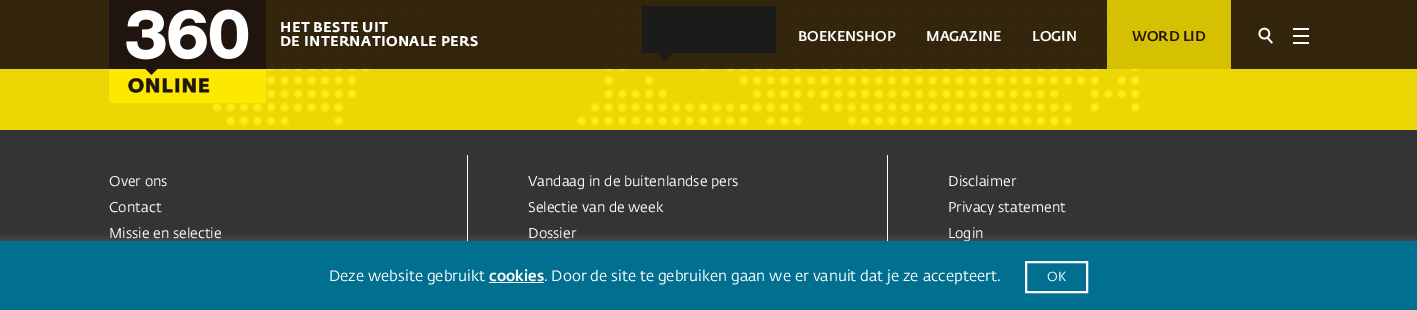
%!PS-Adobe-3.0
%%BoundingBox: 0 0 1417 310
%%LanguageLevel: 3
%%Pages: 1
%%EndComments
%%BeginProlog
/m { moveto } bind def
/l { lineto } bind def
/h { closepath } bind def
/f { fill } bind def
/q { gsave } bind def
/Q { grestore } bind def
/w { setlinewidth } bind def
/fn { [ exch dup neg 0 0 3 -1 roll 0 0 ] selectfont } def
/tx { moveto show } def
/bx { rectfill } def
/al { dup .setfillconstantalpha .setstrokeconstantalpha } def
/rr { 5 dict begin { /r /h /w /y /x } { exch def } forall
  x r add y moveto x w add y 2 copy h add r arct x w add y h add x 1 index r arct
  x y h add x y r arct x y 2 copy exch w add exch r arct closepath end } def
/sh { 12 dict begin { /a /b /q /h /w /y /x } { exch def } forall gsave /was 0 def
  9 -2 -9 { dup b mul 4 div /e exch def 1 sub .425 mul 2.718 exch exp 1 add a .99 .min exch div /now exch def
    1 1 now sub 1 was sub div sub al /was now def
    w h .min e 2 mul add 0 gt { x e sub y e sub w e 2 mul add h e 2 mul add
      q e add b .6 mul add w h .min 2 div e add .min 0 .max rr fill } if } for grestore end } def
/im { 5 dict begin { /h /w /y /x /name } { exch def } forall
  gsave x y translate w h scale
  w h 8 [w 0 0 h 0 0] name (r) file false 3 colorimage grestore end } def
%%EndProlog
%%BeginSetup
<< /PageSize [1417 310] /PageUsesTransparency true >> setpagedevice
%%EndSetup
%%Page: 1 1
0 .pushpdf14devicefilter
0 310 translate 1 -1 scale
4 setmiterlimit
0.204 setgray
0 0 1417 310 bx
1 0.918 0 setrgbcolor
0 0 1417 130 bx
(image0.raw) 0 0 1417 130 im
0 0.443 0.573 setrgbcolor
642 6 134 47 bx
657 53 m 673 53 l 665 61 l h f
0.9 al
0.118 0.071 0.047 setrgbcolor
0 0 1417 69 bx
1 al
(image1.raw) 109 0 157 103 im
/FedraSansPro-Bold 14 fn
1 setgray
280 32 m 0.35 0 (HET BESTE UIT) ashow
280 46 m 0.35 0 (DE INTERNATIONALE PERS) ashow
/FedraSansPro-Medium 14 fn
(BOEKENSHOP) 798 41 tx
(MAGAZINE) 926 41 tx
(LOGIN) 1032 41 tx
0.835 0.753 0.008 setrgbcolor
1107 0 124 69 bx
0.133 0.086 0.047 setrgbcolor
(WORD LID) 1132 41 tx
(image2.raw) 1258 27 15 17 im
1 setgray
1293 28 16 2 bx
1293 35 16 2 bx
1293 42 16 2 bx
467 155 1 155 bx
/FedraSansPro-Regular 14 fn
(Over ons) 109 186 tx
(Contact) 109 212 tx
(Missie en selectie) 109 238 tx
887 155 1 155 bx
(Vandaag in de buitenlandse pers) 528 186 tx
(Selectie van de week) 528 212 tx
(Dossier) 528 238 tx
(Disclaimer) 948 186 tx
(Privacy statement) 948 212 tx
(Login) 948 238 tx
q
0 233 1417 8 rectclip
0.675 0.671 0.671 setrgbcolor
0 240 1417 69 0 5 0.29 sh
Q
0.98 al
0 0.443 0.573 setrgbcolor
0 241 1417 69 bx
/FedraSansPro-Regular 15 fn
1 al
1 setgray
(Deze website gebruikt) 329 281 tx
/FedraSansPro-Medium 15 fn
(cookies) 489 281 tx
0.98 al
489 282 55 1 bx
/FedraSansPro-Regular 15 fn
1 al
(. Door de site te gebruiken gaan we er vanuit dat je ze accepteert.) 544 281 tx
0.984 setgray
2 w
1026 262 61 30 rectstroke
/FedraSansPro-Regular 13 fn
1 setgray
(OK) 1047 281 tx
.poppdf14devicefilter showpage
%%EOF
